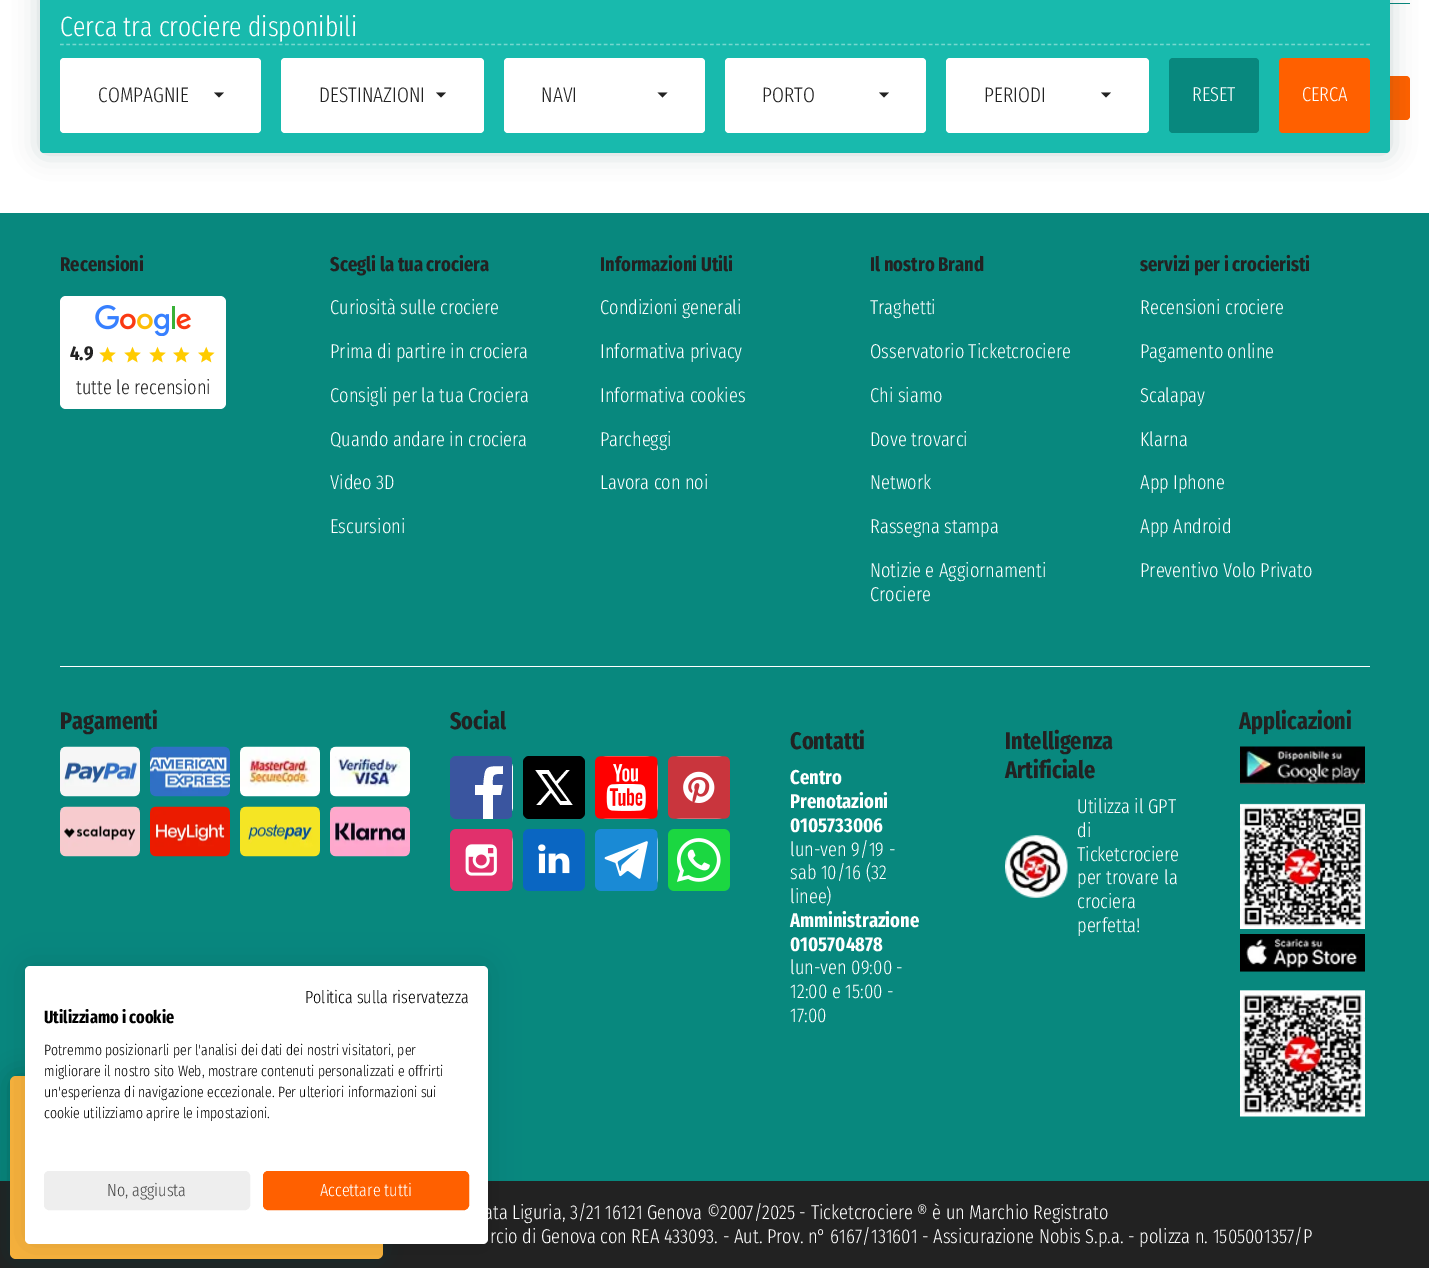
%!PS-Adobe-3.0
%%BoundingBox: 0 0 1429 1268
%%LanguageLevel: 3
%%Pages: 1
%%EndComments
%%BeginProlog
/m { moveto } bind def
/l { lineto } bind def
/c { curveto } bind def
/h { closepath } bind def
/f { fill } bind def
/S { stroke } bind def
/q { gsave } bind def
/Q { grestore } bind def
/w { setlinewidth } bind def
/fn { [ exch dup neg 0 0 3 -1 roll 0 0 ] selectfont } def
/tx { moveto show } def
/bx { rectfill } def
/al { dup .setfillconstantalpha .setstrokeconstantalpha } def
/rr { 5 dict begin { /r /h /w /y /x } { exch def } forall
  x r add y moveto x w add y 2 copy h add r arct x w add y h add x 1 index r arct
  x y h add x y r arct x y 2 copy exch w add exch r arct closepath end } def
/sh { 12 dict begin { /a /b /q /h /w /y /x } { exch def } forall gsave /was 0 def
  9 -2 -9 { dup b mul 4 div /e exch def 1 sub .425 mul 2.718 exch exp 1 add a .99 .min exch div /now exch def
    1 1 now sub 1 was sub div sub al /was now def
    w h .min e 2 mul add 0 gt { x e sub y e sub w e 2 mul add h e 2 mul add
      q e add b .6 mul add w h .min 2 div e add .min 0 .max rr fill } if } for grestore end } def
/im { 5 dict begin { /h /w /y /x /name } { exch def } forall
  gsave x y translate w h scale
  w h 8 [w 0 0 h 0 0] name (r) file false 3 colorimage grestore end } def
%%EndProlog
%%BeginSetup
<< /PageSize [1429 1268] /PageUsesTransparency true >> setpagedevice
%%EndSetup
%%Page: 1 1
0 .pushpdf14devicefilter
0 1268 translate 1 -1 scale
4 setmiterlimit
1 setgray
0 0 1429 1268 bx
0.031 0.533 0.494 setrgbcolor
1390 3 20 1 bx
1 0.376 0 setrgbcolor
1108 76 302 44 4 rr f
0 0.235 0.235 setrgbcolor
40 -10 1350 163 4 12.5 0.2 sh
0.094 0.729 0.678 setrgbcolor
40 -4 1350 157 4 rr f
0.463 0.843 0.812 setrgbcolor
1.2 w
[3.75 2.5] 0 setdash
60 44.5 m 1370 44.5 l S
/FiraSansExtraCondensed-Light 28 fn
1 setgray
(Cerca tra crociere disponibili) 60 36 tx
60 58 201 75 4 rr f
/FiraSansExtraCondensed-Light 21 fn
0.133 setgray
(COMPAGNIE) 98 102 tx
214 92.5 m 224 92.5 l 219 97.5 l h f
1 setgray
281 58 203 75 4 rr f
0.133 setgray
(DESTINAZIONI) 319 102 tx
436 92.5 m 446 92.5 l 441 97.5 l h f
1 setgray
504 58 201 75 4 rr f
0.133 setgray
(NAVI) 541 102 tx
657.5 92.5 m 667.5 92.5 l 662.5 97.5 l h f
1 setgray
725 58 201 75 4 rr f
0.133 setgray
(PORTO) 762 102 tx
879 92.5 m 889 92.5 l 884 97.5 l h f
1 setgray
946 58 203 75 4 rr f
0.133 setgray
(PERIODI) 984 102 tx
1101 92.5 m 1111 92.5 l 1106 97.5 l h f
0.031 0.533 0.494 setrgbcolor
1169 58 90 75 4 rr f
/FiraSansExtraCondensed-Light 20 fn
1 setgray
(RESET) 1192 101 tx
1 0.376 0 setrgbcolor
1279 58 91 75 4 rr f
1 setgray
(CERCA) 1302 101 tx
0.031 0.533 0.494 setrgbcolor
0 213 1429 968 bx
/FiraSansExtraCondensed-Bold 20 fn
0.133 setgray
(Recensioni) 60 271 tx
1 setgray
60 296 166 113 6 rr f
(image0.raw) 95 305 96 31 im
0.133 setgray
(4.9) 70 360 tx
(image1.raw) 99 346 17 17 im
(image1.raw) 124 346 17 17 im
(image1.raw) 149 346 17 17 im
(image2.raw) 173 346 17 17 im
(image2.raw) 198 346 17 17 im
/FiraSansExtraCondensed-Light 20 fn
(tutte le recensioni) 76 394 tx
/FiraSansExtraCondensed-Bold 20 fn
(Scegli la tua crociera) 330 271 tx
/FiraSansExtraCondensed-Light 20 fn
1 setgray
(Curiosità sulle crociere) 330 314 tx
(Prima di partire in crociera) 330 358 tx
(Consigli per la tua Crociera) 330 402 tx
(Quando andare in crociera) 330 446 tx
(Video 3D) 330 489 tx
(Escursioni) 330 533 tx
/FiraSansExtraCondensed-Bold 20 fn
0.133 setgray
(Informazioni Utili) 600 271 tx
/FiraSansExtraCondensed-Light 20 fn
1 setgray
(Condizioni generali) 600 314 tx
(Informativa privacy) 600 358 tx
(Informativa cookies) 600 402 tx
(Parcheggi) 600 446 tx
(Lavora con noi) 600 489 tx
/FiraSansExtraCondensed-Bold 20 fn
0.133 setgray
(Il nostro Brand) 870 271 tx
/FiraSansExtraCondensed-Light 20 fn
1 setgray
(Traghetti) 870 314 tx
(Osservatorio Ticketcrociere) 870 358 tx
(Chi siamo) 870 402 tx
(Dove trovarci) 870 446 tx
(Network) 870 489 tx
(Rassegna stampa) 870 533 tx
(Notizie e Aggiornamenti) 870 577 tx
(Crociere) 870 601 tx
/FiraSansExtraCondensed-Bold 20 fn
0.133 setgray
(servizi per i crocieristi) 1140 271 tx
/FiraSansExtraCondensed-Light 20 fn
1 setgray
(Recensioni crociere) 1140 314 tx
(Pagamento online) 1140 358 tx
(Scalapay) 1140 402 tx
(Klarna) 1140 446 tx
(App Iphone) 1140 489 tx
(App Android) 1140 533 tx
(Preventivo Volo Privato) 1140 577 tx
60 666 1310 1 bx
/FiraSansExtraCondensed-Bold 24 fn
0.133 setgray
(Pagamenti) 60 729 tx
(image3.raw) 60 746 80 51 im
(image4.raw) 150 746 80 51 im
(image5.raw) 240 746 80 51 im
(image6.raw) 330 746 80 51 im
(image7.raw) 60 806 80 51 im
(image8.raw) 150 806 80 51 im
(image9.raw) 240 806 80 51 im
(image10.raw) 330 806 80 51 im
(Social) 450 729 tx
1 setgray
450 756 63 63 13 rr f
q
450 756 63 63 rectclip
0.227 0.333 0.624 setrgbcolor
456 756 m 453 756 450 759 450 762 c 450 813 l 450 816 453 819 456 819 c 483 819 l 483 795 l 475 795 l 475 785 l 483 785 l 485 766 484 766 503 766 c 503 774 l 492 774 493 775 493 785 c 503 785 l 501 795 l 493 795 l 493 819 l 498 819 509 821 512 816 c 512 759 l 511 757 509 756 507 756 c h f
Q
523 756 62 63 13 rr f
0 setgray
529 756 m 526 756 523 759 523 762 c 523 813 l 523 816 526 819 529 819 c 579 819 l 582 819 585 816 585 813 c 585 762 l 585 759 582 756 579 756 c h 573 805 m 560 805 l 551 793 l 541 805 l 536 805 l 549 790 l 535 770 l 549 770 l 556 781 l 566 770 l 570 770 l 558 784 l h 547 774 m 542 774 l 561 801 l 567 801 l h eofill
1 setgray
595 756 63 63 13 rr f
(image11.raw) 595 756 63 63 im
668 756 62 63 13 rr f
(image12.raw) 668 756 62 63 im
450 829 63 62 13 rr f
(image13.raw) 450 829 63 62 im
523 829 62 62 13 rr f
(image14.raw) 523 829 62 62 im
595 829 63 62 13 rr f
(image15.raw) 595 829 63 62 im
(image16.raw) 668 829 62 62 im
0.133 setgray
(Applicazioni) 1239 729 tx
(image17.raw) 1240 746 125 183 im
(image18.raw) 1240 934 125 183 im
(Contatti) 790 749 tx
/FiraSansExtraCondensed-Bold 20 fn
1 setgray
(Centro) 790 784 tx
(Prenotazioni) 790 808 tx
(0105733006) 790 832 tx
/FiraSansExtraCondensed-Light 20 fn
(lun-ven 9/19 -) 790 856 tx
(sab 10/16 \(32) 790 879 tx
(linee\)) 790 903 tx
/FiraSansExtraCondensed-Bold 20 fn
(Amministrazione) 790 927 tx
(0105704878) 790 951 tx
/FiraSansExtraCondensed-Light 20 fn
(lun-ven 09:00 -) 790 974 tx
(12:00 e 15:00 -) 790 998 tx
(17:00) 790 1022 tx
/FiraSansExtraCondensed-Bold 24 fn
0.133 setgray
(Intelligenza) 1005 749 tx
(Artificiale) 1005 778 tx
/FiraSansExtraCondensed-Light 20 fn
1 setgray
(Utilizza il GPT) 1077 813 tx
(di) 1077 837 tx
(image19.raw) 1005 835 63 63 im
(Ticketcrociere) 1077 861 tx
(per trovare la) 1077 884 tx
(crociera) 1077 908 tx
(perfetta!) 1077 932 tx
0.133 setgray
0 1181 1429 87 bx
1 setgray
(ata Liguria, 3/21 16121 Genova ©2007/2025 - Ticketcrociere ® è un Marchio Registrato) 484 1219 tx
(rcio di Genova con REA 433093. - Aut. Prov. n° 6167/131601 - Assicurazione Nobis S.p.a. - polizza n. 1505001357/P) 490 1243 tx
0 0.235 0.235 setrgbcolor
10 1076 373 183 6 12.5 0.4 sh
0.969 0.698 0.235 setrgbcolor
10 1076 373 183 6 rr f
0 setgray
25 966 463 278 5 15 0.1 sh
1 setgray
25 966 463 278 5 rr f
/FiraSansExtraCondensed-Light 17.5 fn
0 setgray
(Politica sulla riservatezza) 305 1003 tx
/FiraSansExtraCondensed-Bold 17.5 fn
(Utilizziamo i cookie) 44 1023 tx
/FiraSansExtraCondensed-Light 15 fn
(Potremmo posizionarli per l'analisi dei dati dei nostri visitatori, per) 44 1055 tx
(migliorare il nostro sito Web, mostrare contenuti personalizzati e offrirti) 44 1076 tx
(un'esperienza di navigazione eccezionale. Per ulteriori informazioni sui) 44 1097 tx
(cookie utilizziamo aprire le impostazioni.) 44 1118 tx
0.933 setgray
44.5 1171.5 205 38 4.5 rr q f Q
1 w
[] 0 setdash
S
/FiraSansExtraCondensed-Light 17.5 fn
0.29 setgray
(No, aggiusta) 107 1196 tx
1 0.376 0 setrgbcolor
263.5 1171.5 205 38 4.5 rr q f Q
S
1 setgray
(Accettare tutti) 320 1196 tx
.poppdf14devicefilter showpage
%%EOF
